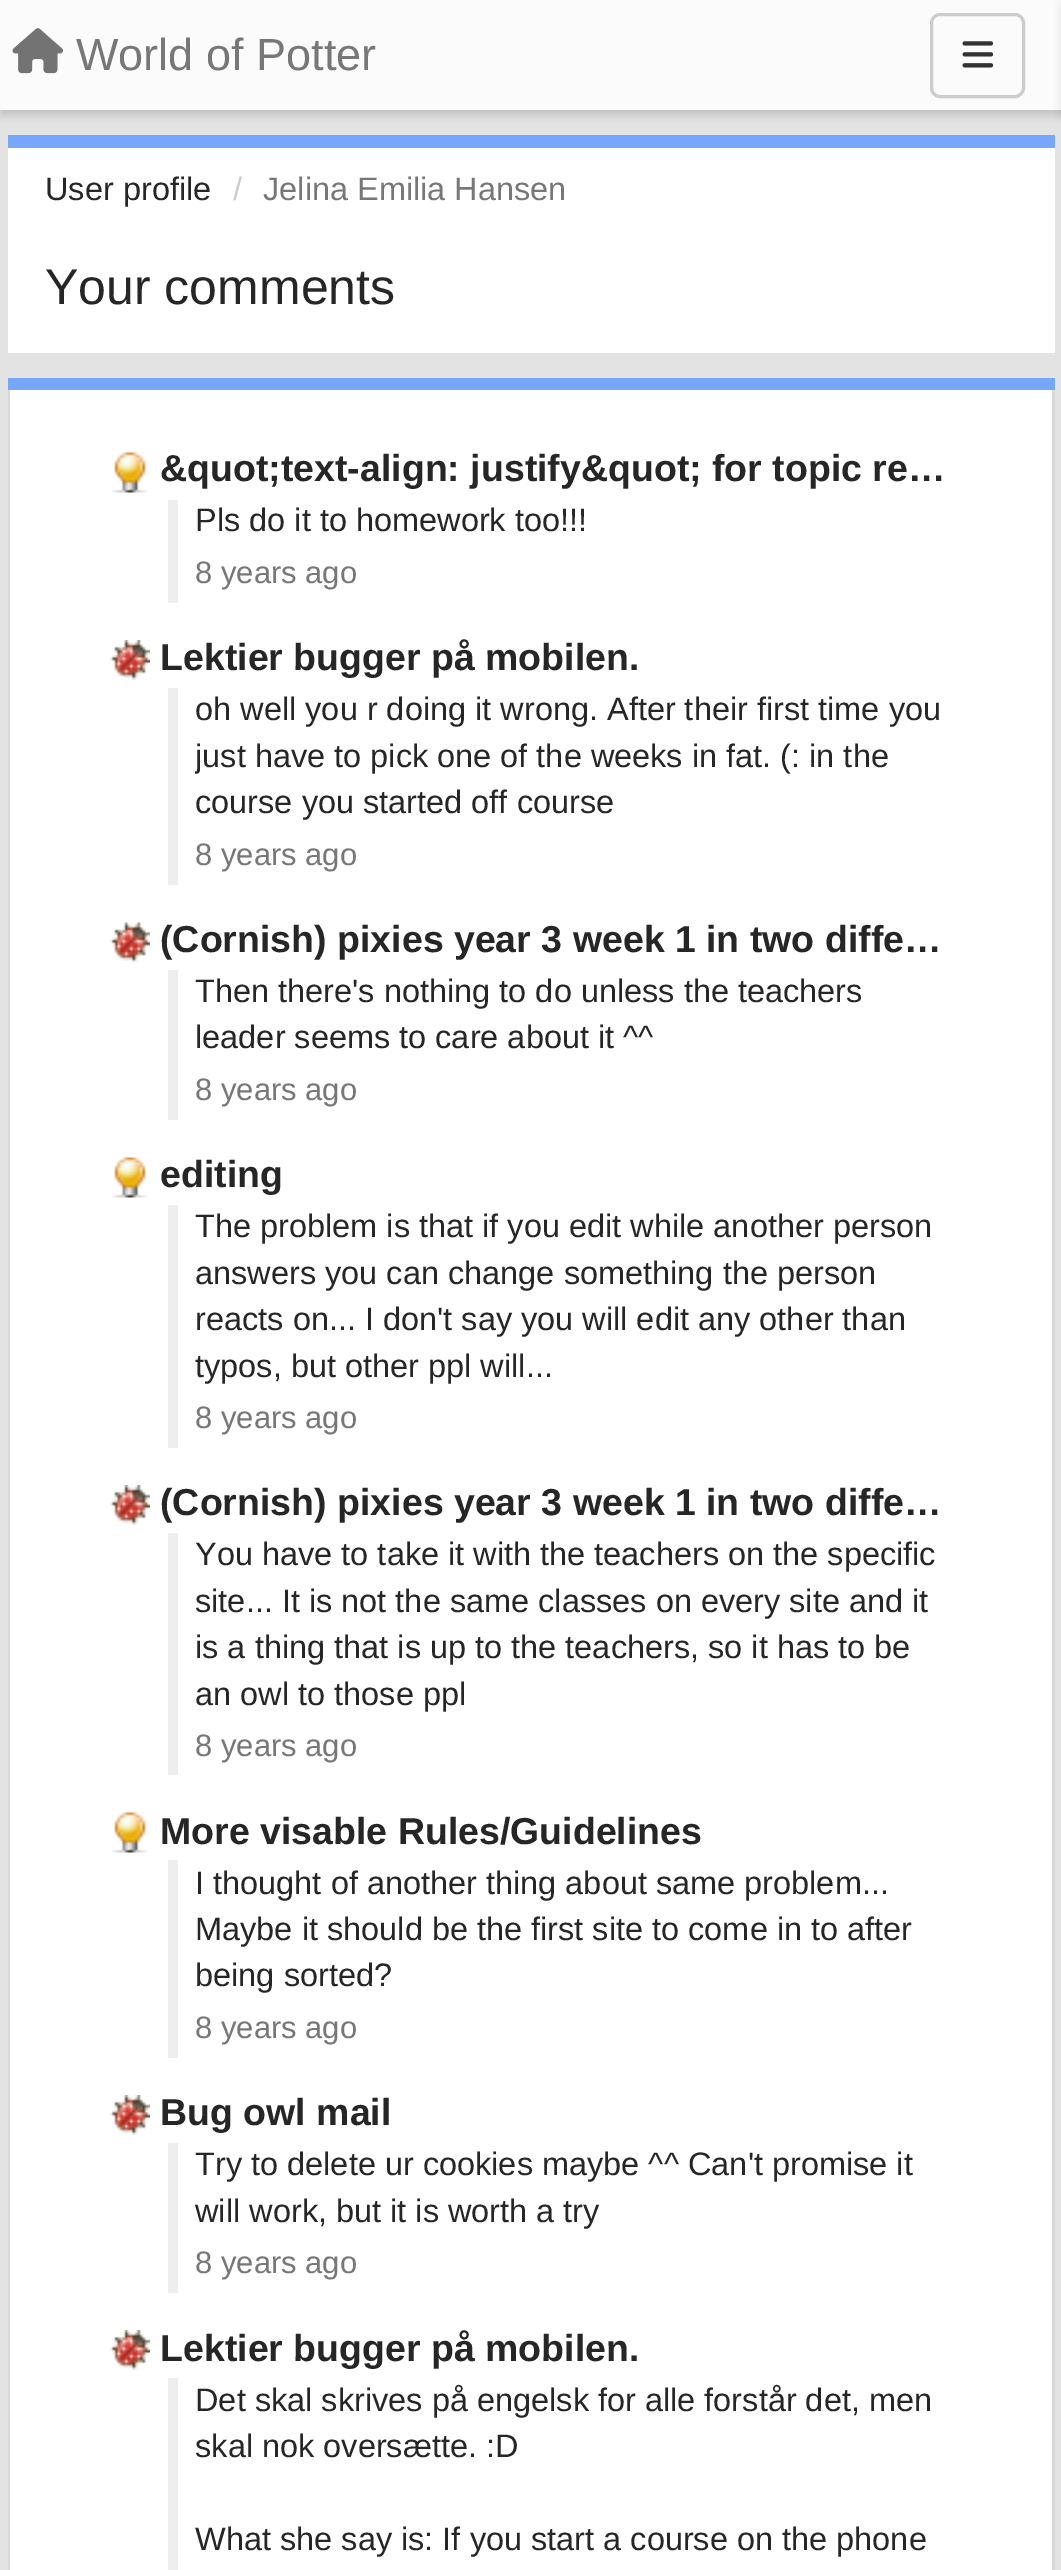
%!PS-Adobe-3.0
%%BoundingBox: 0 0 1061 2570
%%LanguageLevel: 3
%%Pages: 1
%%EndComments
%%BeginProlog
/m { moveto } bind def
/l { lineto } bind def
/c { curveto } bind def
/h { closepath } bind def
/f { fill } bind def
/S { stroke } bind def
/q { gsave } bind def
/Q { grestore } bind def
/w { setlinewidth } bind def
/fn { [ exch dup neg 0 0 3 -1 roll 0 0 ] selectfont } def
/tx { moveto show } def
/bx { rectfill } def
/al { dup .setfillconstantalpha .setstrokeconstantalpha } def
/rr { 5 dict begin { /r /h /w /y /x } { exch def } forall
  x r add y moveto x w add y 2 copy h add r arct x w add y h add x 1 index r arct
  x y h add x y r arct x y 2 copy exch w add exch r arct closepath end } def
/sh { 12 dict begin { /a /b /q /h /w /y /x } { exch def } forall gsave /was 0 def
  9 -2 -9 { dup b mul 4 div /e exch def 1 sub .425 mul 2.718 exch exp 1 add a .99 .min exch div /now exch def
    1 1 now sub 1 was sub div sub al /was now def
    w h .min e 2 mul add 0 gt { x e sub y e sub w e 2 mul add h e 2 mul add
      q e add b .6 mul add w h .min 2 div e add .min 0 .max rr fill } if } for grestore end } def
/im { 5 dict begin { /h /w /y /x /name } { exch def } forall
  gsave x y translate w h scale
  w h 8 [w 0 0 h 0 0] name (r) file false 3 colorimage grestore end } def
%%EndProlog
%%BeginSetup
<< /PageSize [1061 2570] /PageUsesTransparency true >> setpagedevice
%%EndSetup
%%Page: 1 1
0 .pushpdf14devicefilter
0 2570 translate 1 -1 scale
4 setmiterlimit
0.89 setgray
0 0 1061 2570 bx
0 setgray
0 5 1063 110 0 5 0.15 sh
0.984 setgray
0 0 1061 110 bx
(image0.raw) 12 28 52 46 im
/LiberationSans-Regular 45 fn
0.467 setgray
(World of Potter) 76 70 tx
0.8 setgray
3 w
931.5 14.5 92 82 8.5 rr S
(image1.raw) 962 41 32 27 im
0 setgray
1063 5 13 110 0 5 0.15 sh
1 setgray
8 148 1047 205 bx
0.463 0.655 0.98 setrgbcolor
8 135 1047 13 bx
/LiberationSans-Regular 32.5 fn
0.149 setgray
(User profile) 45 200 tx
0.8 setgray
(/) 233 200 tx
0.467 setgray
(Jelina Emilia Hansen) 263 200 tx
/LiberationSans-Regular 50 fn
0.149 setgray
(Your comments) 45 304 tx
0.463 0.655 0.98 setrgbcolor
8 378 1047 12 bx
1 setgray
10 390 m 1052 390 l 1052 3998 l 1052 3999 1050 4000 1048 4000 c 15 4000 l 12 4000 10 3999 10 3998 c h f
0.847 setgray
8 390 m 1055 390 l 1055 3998 l 1055 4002 1052 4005 1048 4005 c 15 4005 l 11 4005 8 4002 8 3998 c h 10 390 m 1052 390 l 1052 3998 l 1052 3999 1050 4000 1048 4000 c 15 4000 l 12 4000 10 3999 10 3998 c h eofill
(image2.raw) 111 452 37 41 im
/LiberationSans-Bold 37.5 fn
0.149 setgray
(&quot;text-align: justify&quot; for topic re…) 160 481 tx
0.933 setgray
168 500 10 103 bx
/LiberationSans-Regular 32.5 fn
0.149 setgray
(Pls do it to homework too!!!) 195 531 tx
/LiberationSans-Regular 31 fn
0.467 setgray
(8 years ago) 195 583 tx
(image3.raw) 110 640 40 40 im
/LiberationSans-Bold 37.5 fn
0.149 setgray
(Lektier bugger på mobilen.) 160 670 tx
0.933 setgray
168 688 10 197 bx
/LiberationSans-Regular 32.5 fn
0.149 setgray
(oh well you r doing it wrong. After their first time you) 195 720 tx
q
195 688 758 140 rectclip
(just have to pick one of the weeks in fat. \(: in the) 195 767 tx
Q
(course you started off course) 195 813 tx
/LiberationSans-Regular 31 fn
0.467 setgray
(8 years ago) 195 865 tx
(image4.raw) 110 922 40 41 im
/LiberationSans-Bold 37.5 fn
0.149 setgray
(\(Cornish\) pixies year 3 week 1 in two diffe…) 160 952 tx
0.933 setgray
168 970 10 150 bx
/LiberationSans-Regular 32.5 fn
0.149 setgray
(Then there's nothing to do unless the teachers) 195 1002 tx
(leader seems to care about it ^^) 195 1048 tx
/LiberationSans-Regular 31 fn
0.467 setgray
(8 years ago) 195 1100 tx
(image5.raw) 111 1157 37 41 im
/LiberationSans-Bold 37.5 fn
0.149 setgray
(editing) 160 1187 tx
0.933 setgray
168 1205 10 243 bx
/LiberationSans-Regular 32.5 fn
0.149 setgray
(The problem is that if you edit while another person) 195 1237 tx
(answers you can change something the person) 195 1284 tx
(reacts on... I don't say you will edit any other than) 195 1330 tx
(typos, but other ppl will...) 195 1377 tx
/LiberationSans-Regular 31 fn
0.467 setgray
(8 years ago) 195 1428 tx
(image3.raw) 110 1485 40 40 im
/LiberationSans-Bold 37.5 fn
0.149 setgray
(\(Cornish\) pixies year 3 week 1 in two diffe…) 160 1515 tx
0.933 setgray
168 1533 10 242 bx
/LiberationSans-Regular 32.5 fn
0.149 setgray
(You have to take it with the teachers on the specific) 195 1565 tx
(site... It is not the same classes on every site and it) 195 1612 tx
(is a thing that is up to the teachers, so it has to be) 195 1658 tx
(an owl to those ppl) 195 1705 tx
/LiberationSans-Regular 31 fn
0.467 setgray
(8 years ago) 195 1756 tx
(image2.raw) 111 1812 37 41 im
/LiberationSans-Bold 37.5 fn
0.149 setgray
(More visable Rules/Guidelines) 160 1844 tx
0.933 setgray
168 1860 10 198 bx
/LiberationSans-Regular 32.5 fn
0.149 setgray
(I thought of another thing about same problem...) 195 1894 tx
(Maybe it should be the first site to come in to after) 195 1940 tx
(being sorted?) 195 1986 tx
/LiberationSans-Regular 31 fn
0.467 setgray
(8 years ago) 195 2038 tx
(image3.raw) 110 2095 40 40 im
/LiberationSans-Bold 37.5 fn
0.149 setgray
(Bug owl mail) 160 2125 tx
0.933 setgray
168 2143 10 150 bx
/LiberationSans-Regular 32.5 fn
0.149 setgray
(Try to delete ur cookies maybe ^^ Can't promise it) 195 2175 tx
(will work, but it is worth a try) 195 2222 tx
/LiberationSans-Regular 31 fn
0.467 setgray
(8 years ago) 195 2273 tx
(image3.raw) 110 2330 40 40 im
/LiberationSans-Bold 37.5 fn
0.149 setgray
(Lektier bugger på mobilen.) 160 2361 tx
0.933 setgray
168 2378 10 192 bx
/LiberationSans-Regular 32.5 fn
0.149 setgray
(Det skal skrives på engelsk for alle forstår det, men) 195 2411 tx
(skal nok oversætte. :D) 195 2457 tx
(What she say is: If you start a course on the phone) 195 2550 tx
.poppdf14devicefilter showpage
%%EOF
